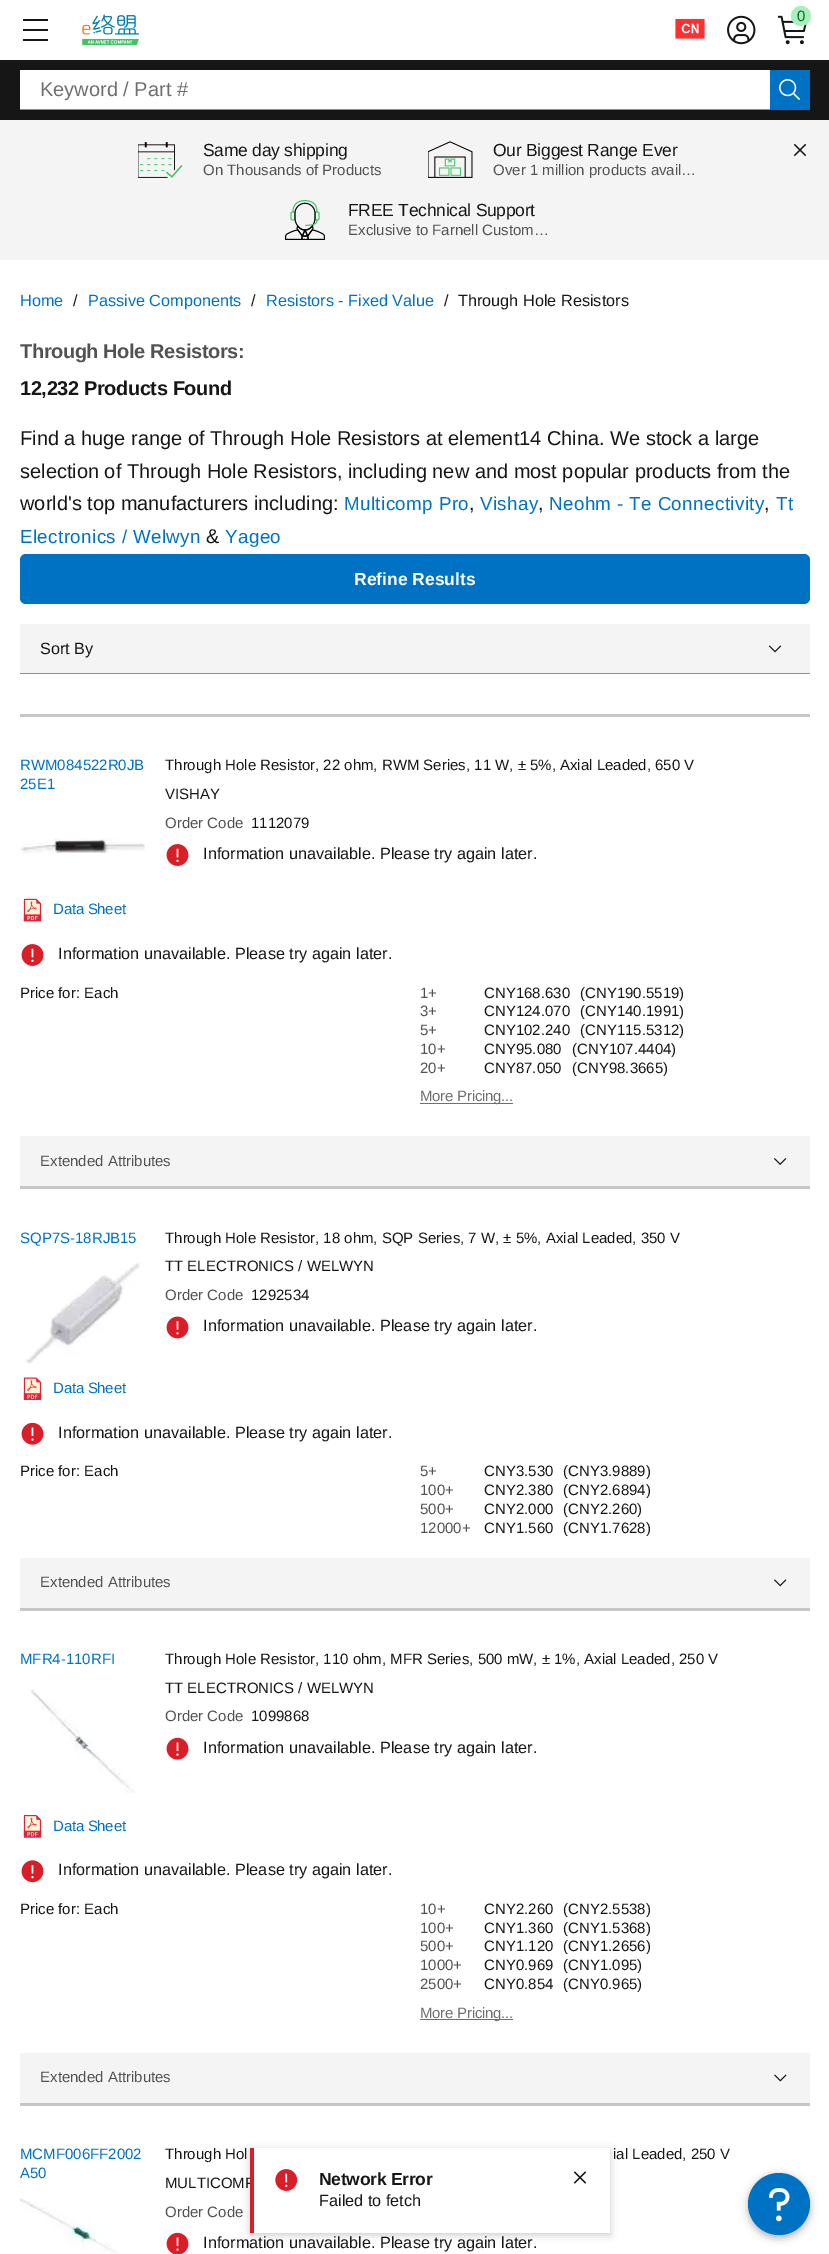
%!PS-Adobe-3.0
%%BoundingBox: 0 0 829 2254
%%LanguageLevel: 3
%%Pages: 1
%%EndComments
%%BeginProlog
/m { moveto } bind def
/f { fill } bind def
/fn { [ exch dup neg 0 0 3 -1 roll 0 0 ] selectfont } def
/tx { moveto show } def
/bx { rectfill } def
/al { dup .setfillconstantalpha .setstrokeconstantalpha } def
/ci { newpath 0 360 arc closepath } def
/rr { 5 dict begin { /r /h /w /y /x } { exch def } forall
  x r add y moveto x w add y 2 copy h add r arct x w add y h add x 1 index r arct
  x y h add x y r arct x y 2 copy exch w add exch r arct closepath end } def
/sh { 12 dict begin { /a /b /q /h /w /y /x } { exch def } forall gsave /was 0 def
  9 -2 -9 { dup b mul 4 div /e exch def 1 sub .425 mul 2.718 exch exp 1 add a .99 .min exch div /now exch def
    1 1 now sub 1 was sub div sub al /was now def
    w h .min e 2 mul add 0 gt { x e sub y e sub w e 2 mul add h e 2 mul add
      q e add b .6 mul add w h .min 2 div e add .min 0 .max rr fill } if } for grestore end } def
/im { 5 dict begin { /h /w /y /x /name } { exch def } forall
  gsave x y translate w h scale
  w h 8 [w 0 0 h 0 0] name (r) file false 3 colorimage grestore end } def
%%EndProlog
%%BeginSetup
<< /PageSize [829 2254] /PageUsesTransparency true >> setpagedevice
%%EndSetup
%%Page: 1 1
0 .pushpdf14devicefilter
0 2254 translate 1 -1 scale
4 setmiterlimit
1 setgray
0 0 829 2254 bx
0.086 setgray
23 19 25 2 bx
23 29 25 2 bx
23 39 25 2 bx
(image0.raw) 82 14 57 32 im
(image1.raw) 675 18 30 21 im
(image2.raw) 727 15 29 30 im
(image3.raw) 778 15 29 30 im
0.655 0.941 0.729 setrgbcolor
801 16 10 ci f
/LiberationSans-Regular 15 fn
0.055 0.376 0.153 setrgbcolor
(0) 797 21 tx
0.086 setgray
0 60 829 60 bx
1 setgray
20 70 750 39 bx
0.553 setgray
20 109 750 1 bx
/LiberationSans-Regular 20 fn
0.435 setgray
(Keyword / Part #) 40 96 tx
0 0.447 0.765 setrgbcolor
770 70 40 40 bx
(image4.raw) 779 79 21 21 im
0.957 setgray
0 120 829 140 bx
(image5.raw) 138 142 45 36 im
/LiberationSans-Regular 17.5 fn
0.086 setgray
203 156 m -0.25 0 (Same day shipping) ashow
/LiberationSans-Regular 15 fn
0.322 setgray
(On Thousands of Products) 203 175 tx
(image6.raw) 428 141 45 37 im
/LiberationSans-Regular 17.5 fn
0.086 setgray
493 156 m -0.25 0 (Our Biggest Range Ever) ashow
/LiberationSans-Regular 15 fn
0.322 setgray
(Over 1 million products avail…) 493 175 tx
(image7.raw) 285 200 40 40 im
/LiberationSans-Regular 17.5 fn
0.086 setgray
348 216 m -0.25 0 (FREE Technical Support) ashow
/LiberationSans-Regular 15 fn
0.322 setgray
(Exclusive to Farnell Custom…) 348 235 tx
(image8.raw) 793 143 14 14 im
/LiberationSans-Regular 16.25 fn
0 0.447 0.765 setrgbcolor
(Home) 20 306 tx
0.086 setgray
(/) 73 306 tx
0 0.447 0.765 setrgbcolor
(Passive Components) 88 306 tx
0.086 setgray
(/) 251 306 tx
0 0.447 0.765 setrgbcolor
(Resistors - Fixed Value) 266 306 tx
0.086 setgray
(/) 444 306 tx
(Through Hole Resistors) 458 306 tx
/LiberationSans-Bold 20 fn
0.322 setgray
20 358 m -0.4 0 (Through Hole Resistors:) ashow
0.086 setgray
20 395 m -0.4 0 (12,232 Products Found) ashow
/LiberationSans-Regular 20 fn
(Find a huge range of Through Hole Resistors at element14 China. We stock a large) 20 445 tx
(selection of Through Hole Resistors, including new and most popular products from the) 20 478 tx
(world's top manufacturers including:) 20 510 tx
/LiberationSans-Regular 18.75 fn
0 0.447 0.765 setrgbcolor
344 510 m 0.4 0 (Multicomp Pro) ashow
/LiberationSans-Regular 20 fn
0.086 setgray
(,) 469 510 tx
/LiberationSans-Regular 18.75 fn
0 0.447 0.765 setrgbcolor
480 510 m 0.4 0 (Vishay) ashow
/LiberationSans-Regular 20 fn
0.086 setgray
(,) 538 510 tx
/LiberationSans-Regular 18.75 fn
0 0.447 0.765 setrgbcolor
549 510 m 0.4 0 (Neohm - Te Connectivity) ashow
/LiberationSans-Regular 20 fn
0.086 setgray
(,) 764 510 tx
/LiberationSans-Regular 18.75 fn
0 0.447 0.765 setrgbcolor
776 510 m 0.4 0 (Tt) ashow
20 543 m 0.4 0 (Electronics / Welwyn) ashow
/LiberationSans-Regular 20 fn
0.086 setgray
(&) 206 543 tx
/LiberationSans-Regular 18.75 fn
0 0.447 0.765 setrgbcolor
225 543 m 0.4 0 (Yageo) ashow
20 554 790 50 6 rr f
/LiberationSans-Bold 17.5 fn
1 setgray
(Refine Results) 354 585 tx
0.957 setgray
20 624 790 49 bx
0.553 setgray
20 673 790 1 bx
/LiberationSans-Regular 16.25 fn
0.086 setgray
(Sort By) 40 654 tx
(image9.raw) 768 645 14 8 im
0.776 setgray
20 714 790 3 bx
/LiberationSans-Regular 15 fn
0 0.447 0.765 setrgbcolor
(RWM084522R0JB) 20 770 tx
(25E1) 20 789 tx
(image10.raw) 20 838 125 16 im
(image11.raw) 23 898 19 24 im
53 914 m -0.25 0 (Data Sheet) ashow
0.086 setgray
(Through Hole Resistor, 22 ohm, RWM Series, 11 W, ± 5%, Axial Leaded, 650 V) 165 770 tx
(VISHAY) 165 799 tx
0.322 setgray
(Order Code) 165 828 tx
0.086 setgray
(1112079) 251 828 tx
(image12.raw) 166 844 23 22 im
/LiberationSans-Regular 16.25 fn
(Information unavailable. Please try again later.) 203 859 tx
(image12.raw) 21 944 23 22 im
(Information unavailable. Please try again later.) 58 959 tx
/LiberationSans-Regular 15 fn
(Price for: Each) 20 998 tx
0.322 setgray
(1+) 420 998 tx
0.086 setgray
(CNY168.630) 484 998 tx
(\(CNY190.5519\)) 580 998 tx
0.322 setgray
(3+) 420 1016 tx
0.086 setgray
(CNY124.070) 484 1016 tx
(\(CNY140.1991\)) 580 1016 tx
0.322 setgray
(5+) 420 1035 tx
0.086 setgray
(CNY102.240) 484 1035 tx
(\(CNY115.5312\)) 580 1035 tx
0.322 setgray
(10+) 420 1054 tx
0.086 setgray
(CNY95.080) 484 1054 tx
(\(CNY107.4404\)) 572 1054 tx
0.322 setgray
(20+) 420 1073 tx
0.086 setgray
(CNY87.050) 484 1073 tx
(\(CNY98.3665\)) 572 1073 tx
0.435 setgray
420 1103 93 1 bx
420 1101 m -0.25 0 (More Pricing...) ashow
0.957 setgray
20 1136 790 50 bx
0.322 setgray
(Extended Attributes) 40 1166 tx
(image13.raw) 774 1158 13 7 im
0.776 setgray
20 1186 790 3 bx
0 0.447 0.765 setrgbcolor
(SQP7S-18RJB15) 20 1243 tx
(image14.raw) 25 1262 115 102 im
(image15.raw) 23 1377 19 23 im
53 1393 m -0.25 0 (Data Sheet) ashow
0.086 setgray
(Through Hole Resistor, 18 ohm, SQP Series, 7 W, ± 5%, Axial Leaded, 350 V) 165 1243 tx
(TT ELECTRONICS / WELWYN) 165 1271 tx
0.322 setgray
(Order Code) 165 1300 tx
0.086 setgray
(1292534) 251 1300 tx
(image16.raw) 166 1316 23 23 im
/LiberationSans-Regular 16.25 fn
(Information unavailable. Please try again later.) 203 1331 tx
(image17.raw) 21 1422 23 23 im
(Information unavailable. Please try again later.) 58 1438 tx
/LiberationSans-Regular 15 fn
(Price for: Each) 20 1476 tx
0.322 setgray
(5+) 420 1476 tx
0.086 setgray
(CNY3.530) 484 1476 tx
(\(CNY3.9889\)) 563 1476 tx
0.322 setgray
(100+) 420 1495 tx
0.086 setgray
(CNY2.380) 484 1495 tx
(\(CNY2.6894\)) 563 1495 tx
0.322 setgray
(500+) 420 1514 tx
0.086 setgray
(CNY2.000) 484 1514 tx
(\(CNY2.260\)) 563 1514 tx
0.322 setgray
(12000+) 420 1533 tx
0.086 setgray
(CNY1.560) 484 1533 tx
(\(CNY1.7628\)) 563 1533 tx
0.957 setgray
20 1558 790 50 bx
0.322 setgray
(Extended Attributes) 40 1587 tx
(image18.raw) 774 1579 13 8 im
0.776 setgray
20 1608 790 3 bx
0 0.447 0.765 setrgbcolor
(MFR4-110RFI) 20 1664 tx
(image19.raw) 30 1689 105 105 im
(image20.raw) 23 1815 19 23 im
53 1831 m -0.25 0 (Data Sheet) ashow
0.086 setgray
(Through Hole Resistor, 110 ohm, MFR Series, 500 mW, ± 1%, Axial Leaded, 250 V) 165 1664 tx
(TT ELECTRONICS / WELWYN) 165 1693 tx
0.322 setgray
(Order Code) 165 1721 tx
0.086 setgray
(1099868) 251 1721 tx
(image17.raw) 166 1737 23 23 im
/LiberationSans-Regular 16.25 fn
(Information unavailable. Please try again later.) 203 1753 tx
(image21.raw) 21 1860 23 23 im
(Information unavailable. Please try again later.) 58 1875 tx
/LiberationSans-Regular 15 fn
(Price for: Each) 20 1914 tx
0.322 setgray
(10+) 420 1914 tx
0.086 setgray
(CNY2.260) 484 1914 tx
(\(CNY2.5538\)) 563 1914 tx
0.322 setgray
(100+) 420 1933 tx
0.086 setgray
(CNY1.360) 484 1933 tx
(\(CNY1.5368\)) 563 1933 tx
0.322 setgray
(500+) 420 1951 tx
0.086 setgray
(CNY1.120) 484 1951 tx
(\(CNY1.2656\)) 563 1951 tx
0.322 setgray
(1000+) 420 1970 tx
0.086 setgray
(CNY0.969) 484 1970 tx
(\(CNY1.095\)) 563 1970 tx
0.322 setgray
(2500+) 420 1989 tx
0.086 setgray
(CNY0.854) 484 1989 tx
(\(CNY0.965\)) 563 1989 tx
0.435 setgray
420 2019 93 1 bx
420 2018 m -0.25 0 (More Pricing...) ashow
0.957 setgray
20 2053 790 50 bx
0.322 setgray
(Extended Attributes) 40 2082 tx
(image22.raw) 774 2074 13 8 im
0.776 setgray
20 2103 790 3 bx
0 0.447 0.765 setrgbcolor
(MCMF006FF2002) 20 2159 tx
(A50) 20 2178 tx
(image23.raw) 20 2198 99 56 im
0.086 setgray
(Through Hol) 165 2159 tx
(ial Leaded, 250 V) 613 2159 tx
(MULTICOMP) 165 2188 tx
0.322 setgray
(Order Code) 165 2217 tx
(image24.raw) 166 2232 23 22 im
/LiberationSans-Regular 16.25 fn
0.086 setgray
(Information unavailable. Please try again later.) 203 2248 tx
0 setgray
250 2150 360 85 0 4 0.2 sh
1 setgray
254 2148 356 85 bx
0.855 0.118 0.157 setrgbcolor
250 2148 4 85 bx
(image25.raw) 275 2169 23 22 im
/LiberationSans-Bold 17.5 fn
0.086 setgray
319 2185 m -0.25 0 (Network Error) ashow
/LiberationSans-Regular 16.25 fn
(Failed to fetch) 319 2206 tx
(image26.raw) 573 2171 14 13 im
0 setgray
748 2175 62 63 31 4 0.3 sh
0 0.447 0.765 setrgbcolor
779 2204 31 ci f
(image27.raw) 769 2188 21 34 im
.poppdf14devicefilter showpage
%%EOF
